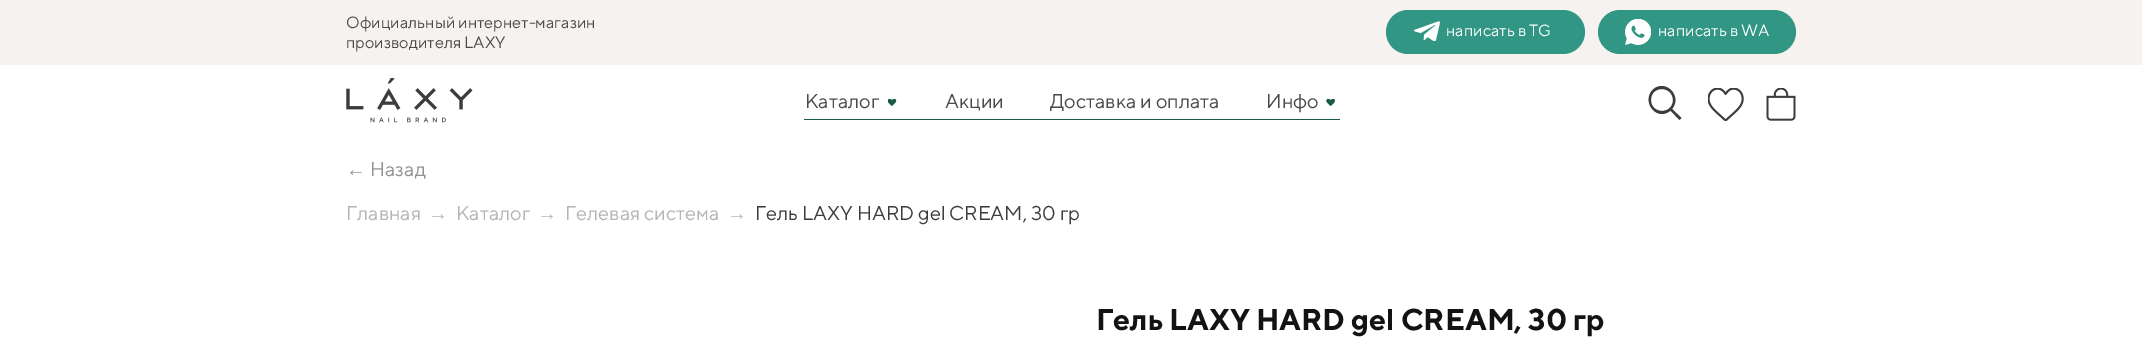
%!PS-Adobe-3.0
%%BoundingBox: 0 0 2142 359
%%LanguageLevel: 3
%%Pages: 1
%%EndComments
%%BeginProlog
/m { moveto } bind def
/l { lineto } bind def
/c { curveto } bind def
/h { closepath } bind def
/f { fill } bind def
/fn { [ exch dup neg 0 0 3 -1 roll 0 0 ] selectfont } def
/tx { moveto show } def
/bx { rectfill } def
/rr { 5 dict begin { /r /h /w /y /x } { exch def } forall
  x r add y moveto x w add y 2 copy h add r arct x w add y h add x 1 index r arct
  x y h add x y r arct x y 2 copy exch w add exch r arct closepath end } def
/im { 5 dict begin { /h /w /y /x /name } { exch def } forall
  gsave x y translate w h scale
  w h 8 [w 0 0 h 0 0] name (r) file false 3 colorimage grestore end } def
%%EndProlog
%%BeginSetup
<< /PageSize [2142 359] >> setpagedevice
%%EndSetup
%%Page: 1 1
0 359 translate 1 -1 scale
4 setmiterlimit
1 setgray
0 0 2142 359 bx
0.965 0.949 0.941 setrgbcolor
0 0 2142 65 bx
/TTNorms-Regular 16.25 fn
0.29 setgray
(Официальный интернет-магазин) 346 28 tx
(производителя LAXY) 346 48 tx
0.196 0.588 0.518 setrgbcolor
1386 10 199 44 22 rr f
1598 10 198 44 22 rr f
(image0.raw) 1414 21 26 20 im
1 setgray
(написать в TG) 1446 36 tx
(image1.raw) 1625 19 26 26 im
(написать в WA) 1658 36 tx
(image2.raw) 346 78 127 45 im
/TTNorms-Regular 20 fn
0.29 setgray
(Каталог) 805 108 tx
(image3.raw) 888 99 9 7 im
(Акции) 945 108 tx
(Доставка и оплата) 1050 108 tx
(Инфо) 1266 108 tx
(image4.raw) 1326 99 9 7 im
0.235 setgray
1681.5 118 m 1672 109 l 1683 95.5 1664.5 78 1652.5 90 c 1641 102.5 1657.5 122 1670.5 110.5 c 1679.5 120 l h 1651 100 m 1651 85 1673 85.5 1673 100.5 c 1672.5 114.5 1651 114.5 1651 100 c h f
(image5.raw) 1708 88 36 33 im
(image6.raw) 1766 88 30 33 im
0.094 0.349 0.29 setrgbcolor
804 119 536 1 bx
/LiberationSans-Regular 20 fn
0.573 setgray
(←) 346 176 tx
/TTNorms-Regular 20 fn
(Назад) 370 176 tx
0.714 0.706 0.706 setrgbcolor
(Главная) 346 220 tx
/LiberationSerif-Regular 20 fn
(→) 428 220 tx
/TTNorms-Regular 20 fn
(Каталог) 456 220 tx
/LiberationSerif-Regular 20 fn
(→) 537 220 tx
/TTNorms-Regular 20 fn
(Гелевая система) 565 220 tx
/LiberationSerif-Regular 20 fn
(→) 727 220 tx
/TTNorms-Regular 20 fn
0.235 setgray
(Гель LAXY HARD gel CREAM, 30 гр) 755 220 tx
/TTNorms-Bold 30 fn
0.075 setgray
(Гель LAXY HARD gel CREAM, 30 гр) 1096 330 tx
showpage
%%EOF
